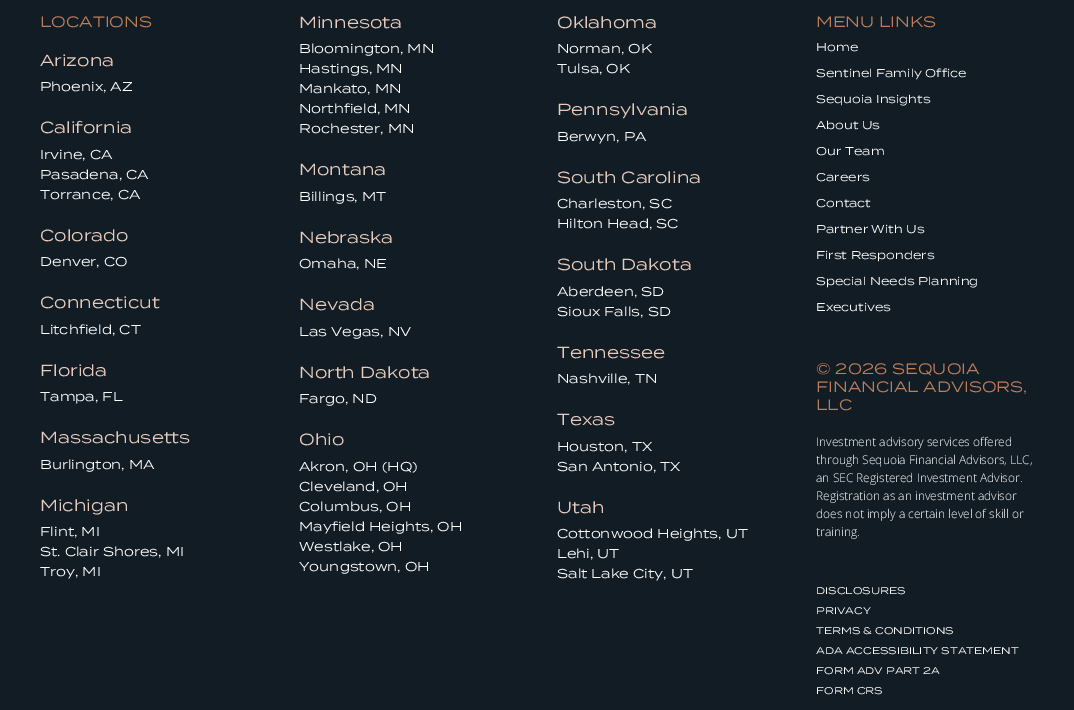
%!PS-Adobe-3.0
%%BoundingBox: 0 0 1074 710
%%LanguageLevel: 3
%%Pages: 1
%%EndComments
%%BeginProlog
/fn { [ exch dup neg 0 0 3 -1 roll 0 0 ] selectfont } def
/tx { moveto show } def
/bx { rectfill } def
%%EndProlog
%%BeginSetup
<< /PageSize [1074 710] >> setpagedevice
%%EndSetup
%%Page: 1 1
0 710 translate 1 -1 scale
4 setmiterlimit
0.067 0.11 0.141 setrgbcolor
0 0 1074 710 bx
/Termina-Regular 15 fn
0.741 0.498 0.353 setrgbcolor
(LOCATIONS) 40 27 tx
/Termina-Regular 16 fn
0.906 0.796 0.737 setrgbcolor
(Arizona) 40 66 tx
/Termina-Regular 12.75 fn
1 setgray
(Phoenix, AZ) 40 91 tx
/Termina-Regular 16 fn
0.906 0.796 0.737 setrgbcolor
(California) 40 133 tx
/Termina-Regular 12.75 fn
1 setgray
(Irvine, CA) 40 159 tx
(Pasadena, CA) 40 179 tx
(Torrance, CA) 40 199 tx
/Termina-Regular 16 fn
0.906 0.796 0.737 setrgbcolor
(Colorado) 40 241 tx
/Termina-Regular 12.75 fn
1 setgray
(Denver, CO) 40 266 tx
/Termina-Regular 16 fn
0.906 0.796 0.737 setrgbcolor
(Connecticut) 40 308 tx
/Termina-Regular 12.75 fn
1 setgray
(Litchfield, CT) 40 334 tx
/Termina-Regular 16 fn
0.906 0.796 0.737 setrgbcolor
(Florida) 40 376 tx
/Termina-Regular 12.75 fn
1 setgray
(Tampa, FL) 40 401 tx
/Termina-Regular 16 fn
0.906 0.796 0.737 setrgbcolor
(Massachusetts) 40 443 tx
/Termina-Regular 12.75 fn
1 setgray
(Burlington, MA) 40 469 tx
/Termina-Regular 16 fn
0.906 0.796 0.737 setrgbcolor
(Michigan) 40 511 tx
/Termina-Regular 12.75 fn
1 setgray
(Flint, MI) 40 536 tx
(St. Clair Shores, MI) 40 556 tx
(Troy, MI) 40 576 tx
/Termina-Regular 16 fn
0.906 0.796 0.737 setrgbcolor
(Minnesota) 299 28 tx
/Termina-Regular 12.75 fn
1 setgray
(Bloomington, MN) 299 53 tx
(Hastings, MN) 299 73 tx
(Mankato, MN) 299 93 tx
(Northfield, MN) 299 113 tx
(Rochester, MN) 299 133 tx
/Termina-Regular 16 fn
0.906 0.796 0.737 setrgbcolor
(Montana) 299 175 tx
/Termina-Regular 12.75 fn
1 setgray
(Billings, MT) 299 201 tx
/Termina-Regular 16 fn
0.906 0.796 0.737 setrgbcolor
(Nebraska) 299 243 tx
/Termina-Regular 12.75 fn
1 setgray
(Omaha, NE) 299 268 tx
/Termina-Regular 16 fn
0.906 0.796 0.737 setrgbcolor
(Nevada) 299 310 tx
/Termina-Regular 12.75 fn
1 setgray
(Las Vegas, NV) 299 336 tx
/Termina-Regular 16 fn
0.906 0.796 0.737 setrgbcolor
(North Dakota) 299 378 tx
/Termina-Regular 12.75 fn
1 setgray
(Fargo, ND) 299 403 tx
/Termina-Regular 16 fn
0.906 0.796 0.737 setrgbcolor
(Ohio) 299 445 tx
/Termina-Regular 12.75 fn
1 setgray
(Akron, OH \(HQ\)) 299 471 tx
(Cleveland, OH) 299 491 tx
(Columbus, OH) 299 511 tx
(Mayfield Heights, OH) 299 531 tx
(Westlake, OH) 299 551 tx
(Youngstown, OH) 299 571 tx
/Termina-Regular 16 fn
0.906 0.796 0.737 setrgbcolor
(Oklahoma) 557 28 tx
/Termina-Regular 12.75 fn
1 setgray
(Norman, OK) 557 53 tx
(Tulsa, OK) 557 73 tx
/Termina-Regular 16 fn
0.906 0.796 0.737 setrgbcolor
(Pennsylvania) 557 115 tx
/Termina-Regular 12.75 fn
1 setgray
(Berwyn, PA) 557 141 tx
/Termina-Regular 16 fn
0.906 0.796 0.737 setrgbcolor
(South Carolina) 557 183 tx
/Termina-Regular 12.75 fn
1 setgray
(Charleston, SC) 557 208 tx
(Hilton Head, SC) 557 228 tx
/Termina-Regular 16 fn
0.906 0.796 0.737 setrgbcolor
(South Dakota) 557 270 tx
/Termina-Regular 12.75 fn
1 setgray
(Aberdeen, SD) 557 296 tx
(Sioux Falls, SD) 557 316 tx
/Termina-Regular 16 fn
0.906 0.796 0.737 setrgbcolor
(Tennessee) 557 358 tx
/Termina-Regular 12.75 fn
1 setgray
(Nashville, TN) 557 383 tx
/Termina-Regular 16 fn
0.906 0.796 0.737 setrgbcolor
(Texas) 557 425 tx
/Termina-Regular 12.75 fn
1 setgray
(Houston, TX) 557 451 tx
(San Antonio, TX) 557 471 tx
/Termina-Regular 16 fn
0.906 0.796 0.737 setrgbcolor
(Utah) 557 513 tx
/Termina-Regular 12.75 fn
1 setgray
(Cottonwood Heights, UT) 557 538 tx
(Lehi, UT) 557 558 tx
(Salt Lake City, UT) 557 578 tx
/Termina-Regular 15 fn
0.741 0.498 0.353 setrgbcolor
(MENU LINKS) 816 27 tx
/Termina-Regular 11.25 fn
1 setgray
(Home) 816 51 tx
(Sentinel Family Office) 816 77 tx
(Sequoia Insights) 816 103 tx
(About Us) 816 129 tx
(Our Team) 816 155 tx
(Careers) 816 181 tx
(Contact) 816 207 tx
(Partner With Us) 816 233 tx
(First Responders) 816 259 tx
(Special Needs Planning) 816 285 tx
(Executives) 816 311 tx
/Termina-Regular 15 fn
0.741 0.498 0.353 setrgbcolor
(© 2026 SEQUOIA) 816 374 tx
(FINANCIAL ADVISORS,) 816 392 tx
(LLC) 816 410 tx
/OpenSans-Light 12 fn
1 setgray
(Investment advisory services offered) 816 446 tx
(through Sequoia Financial Advisors, LLC,) 816 464 tx
(an SEC Registered Investment Advisor.) 816 482 tx
(Registration as an investment advisor) 816 500 tx
(does not imply a certain level of skill or) 816 518 tx
(training.) 816 536 tx
/Termina-Regular 9.75 fn
(DISCLOSURES) 816 594 tx
(PRIVACY) 816 614 tx
(TERMS & CONDITIONS) 816 634 tx
(ADA ACCESSIBILITY STATEMENT) 816 654 tx
(FORM ADV PART 2A) 816 674 tx
(FORM CRS) 816 694 tx
showpage
%%EOF
